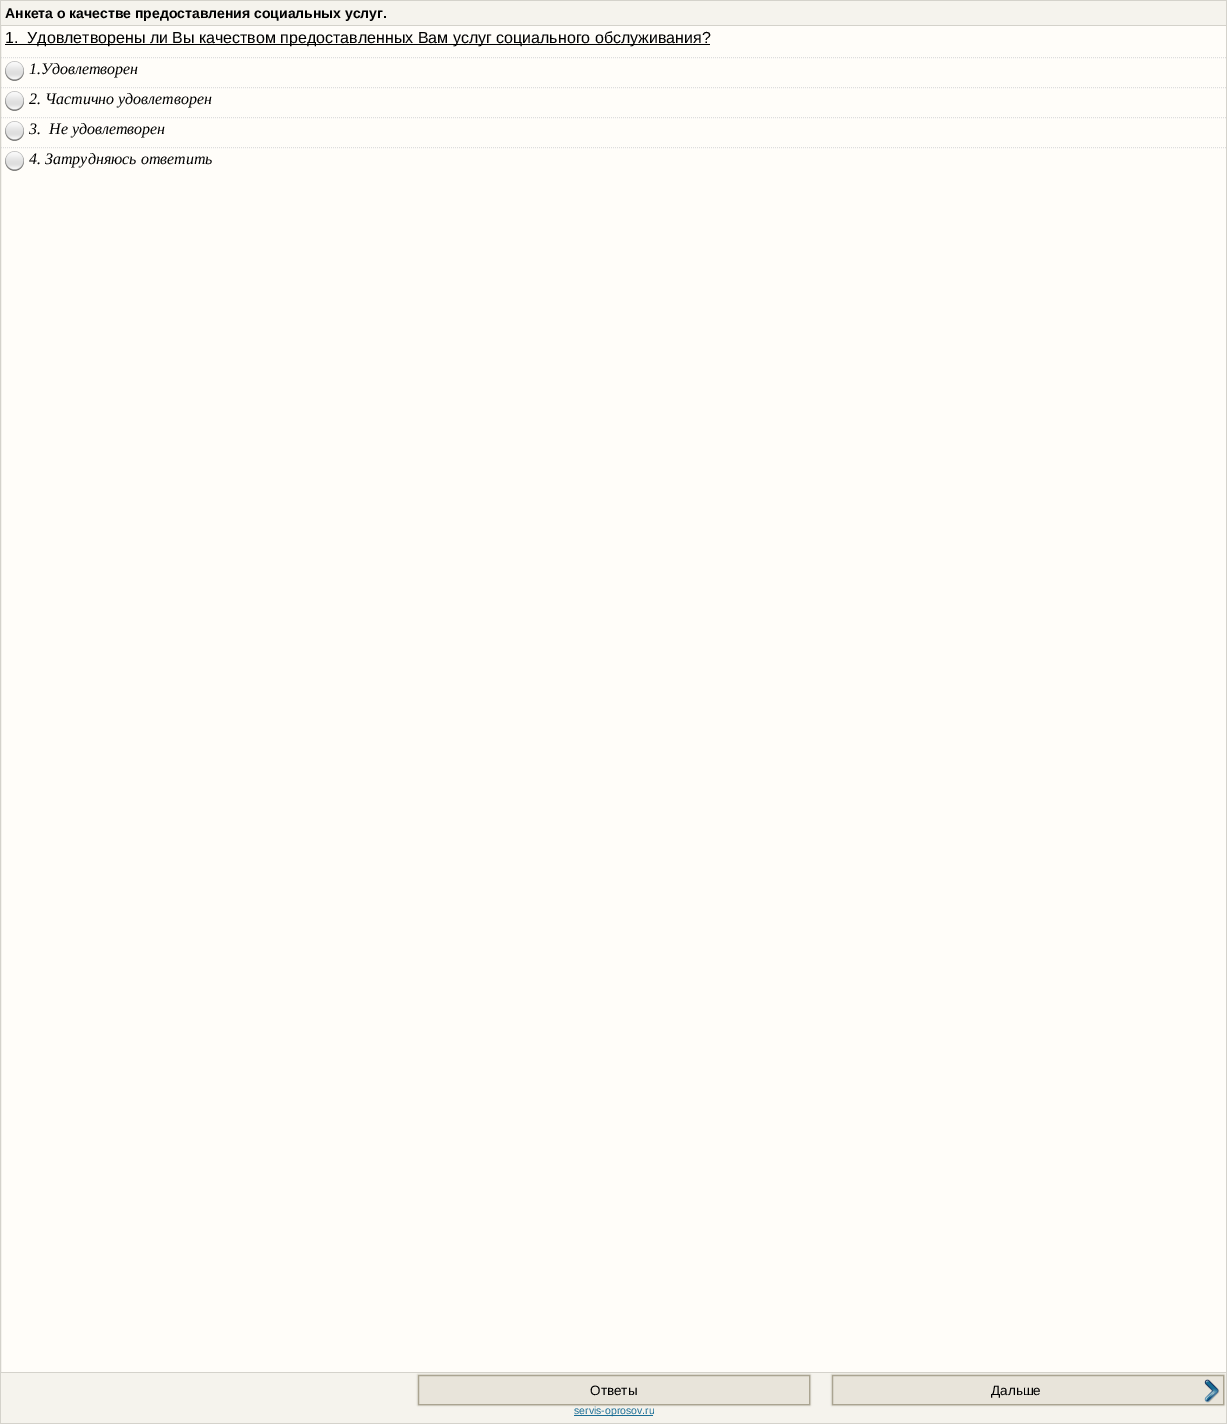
%!PS-Adobe-3.0
%%BoundingBox: 0 0 1227 1424
%%LanguageLevel: 3
%%Pages: 1
%%EndComments
%%BeginProlog
/m { moveto } bind def
/l { lineto } bind def
/h { closepath } bind def
/f { fill } bind def
/S { stroke } bind def
/q { gsave } bind def
/Q { grestore } bind def
/fn { [ exch dup neg 0 0 3 -1 roll 0 0 ] selectfont } def
/tx { moveto show } def
/bx { rectfill } def
/al { dup .setfillconstantalpha .setstrokeconstantalpha } def
/rr { 5 dict begin { /r /h /w /y /x } { exch def } forall
  x r add y moveto x w add y 2 copy h add r arct x w add y h add x 1 index r arct
  x y h add x y r arct x y 2 copy exch w add exch r arct closepath end } def
/sh { 12 dict begin { /a /b /q /h /w /y /x } { exch def } forall gsave /was 0 def
  9 -2 -9 { dup b mul 4 div /e exch def 1 sub .425 mul 2.718 exch exp 1 add a .99 .min exch div /now exch def
    1 1 now sub 1 was sub div sub al /was now def
    w h .min e 2 mul add 0 gt { x e sub y e sub w e 2 mul add h e 2 mul add
      q e add b .6 mul add w h .min 2 div e add .min 0 .max rr fill } if } for grestore end } def
/im { 5 dict begin { /h /w /y /x /name } { exch def } forall
  gsave x y translate w h scale
  w h 8 [w 0 0 h 0 0] name (r) file false 3 colorimage grestore end } def
%%EndProlog
%%BeginSetup
<< /PageSize [1227 1424] /PageUsesTransparency true >> setpagedevice
%%EndSetup
%%Page: 1 1
0 .pushpdf14devicefilter
0 1424 translate 1 -1 scale
4 setmiterlimit
1 0.992 0.976 setrgbcolor
0 0 1227 1424 bx
0.831 0.824 0.796 setrgbcolor
0.5 0.5 1226 1423 rectstroke
0.961 0.953 0.929 setrgbcolor
1 1 1225 24 bx
0.831 0.824 0.796 setrgbcolor
1 25 1225 1 bx
/LiberationSans-Bold 14 fn
0 setgray
(Анкета о качестве предоставления социальных услуг.) 5 18 tx
5 44 705 1 bx
/LiberationSans-Regular 16 fn
(1.  Удовлетворены ли Вы качеством предоставленных Вам услуг социального обслуживания?) 5 43 tx
0.867 setgray
[1 1] 0 setdash
1 57.5 m 1226 57.5 l S
(image0.raw) 5 61 19 20 im
/LiberationSerif-Italic 16 fn
0 setgray
(1.Удовлетворен) 29 74 tx
0.867 setgray
1 87.5 m 1226 87.5 l S
(image0.raw) 5 91 19 20 im
0 setgray
(2. Частично удовлетворен) 29 104 tx
0.867 setgray
1 117.5 m 1226 117.5 l S
(image0.raw) 5 121 19 20 im
0 setgray
(3.  Не удовлетворен) 29 134 tx
0.867 setgray
1 147.5 m 1226 147.5 l S
(image0.raw) 5 151 19 20 im
0 setgray
(4. Затрудняюсь ответить) 29 164 tx
0.961 0.953 0.929 setrgbcolor
1 1373 1225 50 bx
0.831 0.824 0.796 setrgbcolor
1 1372 1225 1 bx
0.62 0.596 0.525 setrgbcolor
418 1375 392 30 0 1 1 sh
0.91 0.894 0.855 setrgbcolor
418.5 1375.5 m 809.5 1375.5 l 809.5 1404.5 l 418.5 1404.5 l h q f Q
0.667 0.643 0.569 setrgbcolor
[] 0 setdash
S
/LiberationSans-Regular 13.5 fn
0 setgray
(Ответы) 590 1395 tx
0.62 0.596 0.525 setrgbcolor
832 1375 392 30 0 1 1 sh
0.91 0.894 0.855 setrgbcolor
832.5 1375.5 m 1223.5 1375.5 l 1223.5 1404.5 l 832.5 1404.5 l h q f Q
0.667 0.643 0.569 setrgbcolor
S
0 setgray
(Дальше) 991 1395 tx
(image1.raw) 1204 1379 16 24 im
0.098 0.427 0.584 setrgbcolor
574 1415 79 1 bx
/LiberationSans-Regular 10.5 fn
(servis-oprosov.ru) 574 1414 tx
.poppdf14devicefilter showpage
%%EOF
